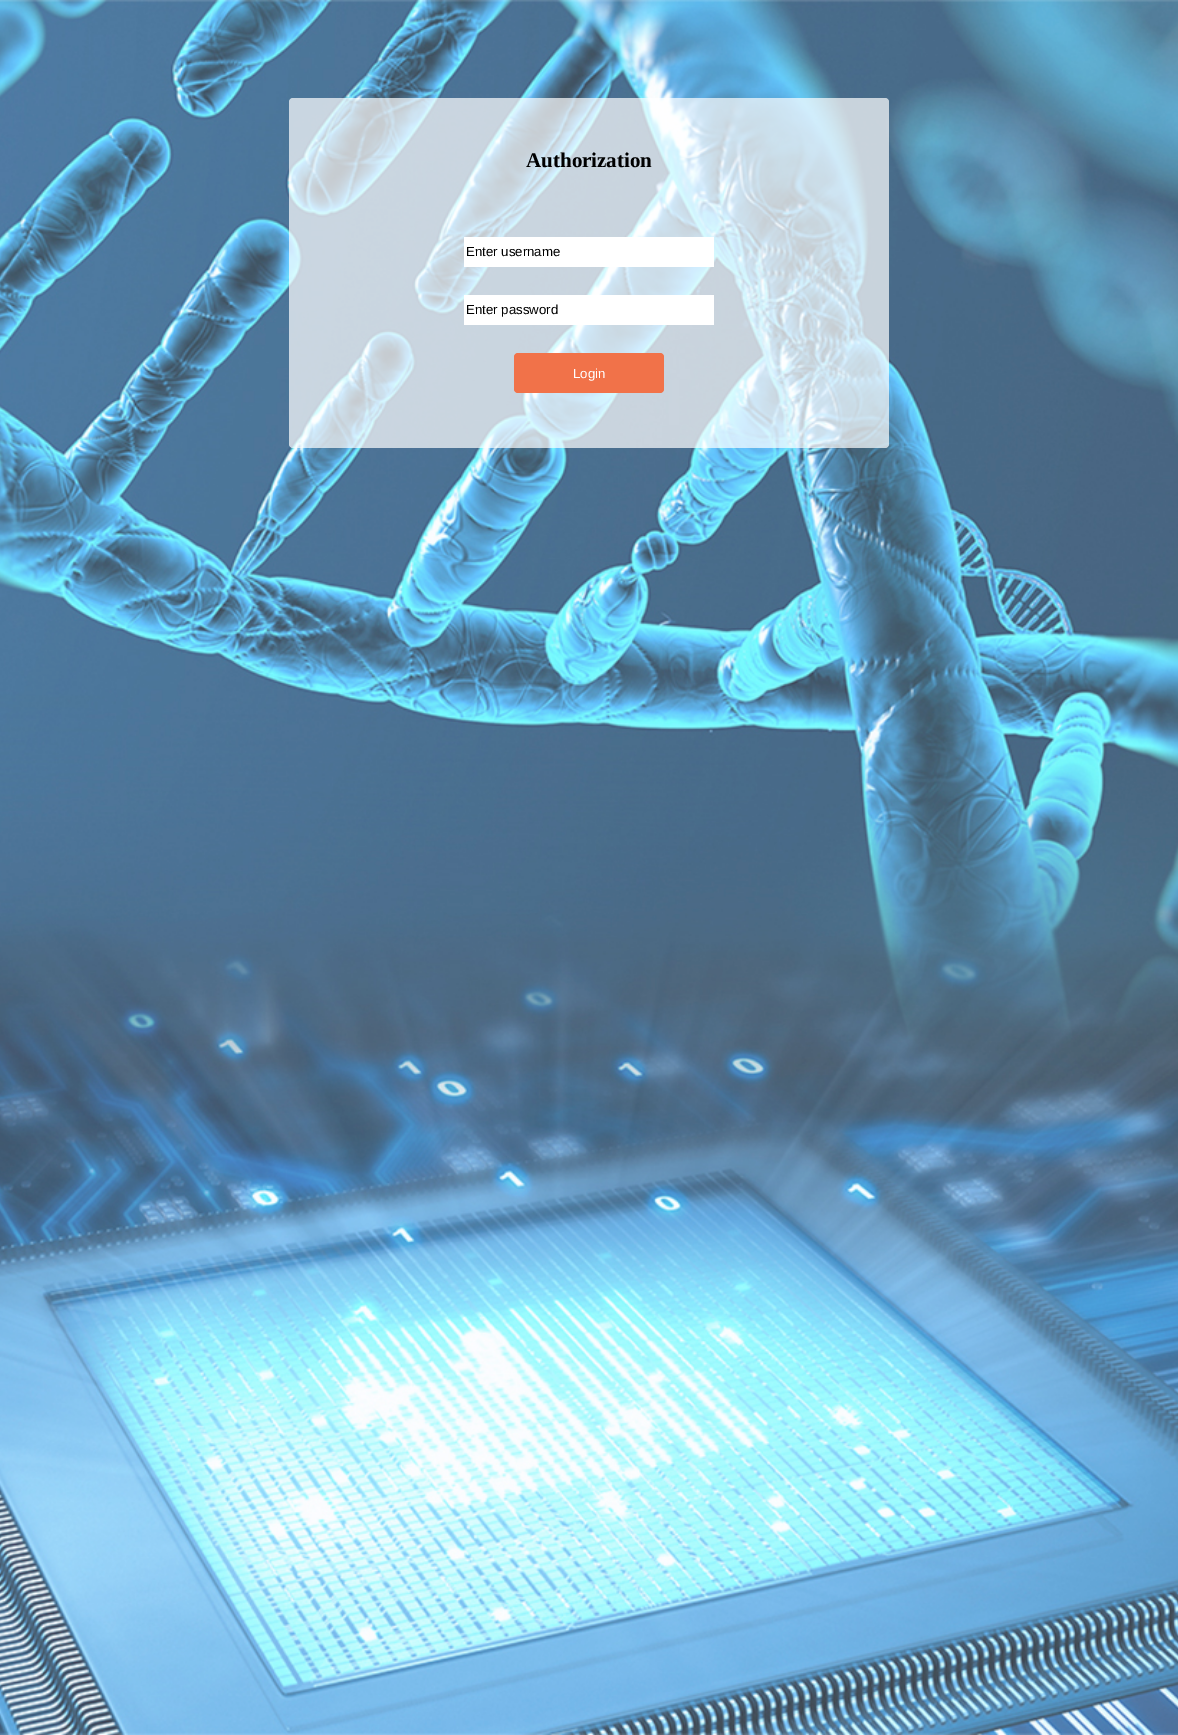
%!PS-Adobe-3.0
%%BoundingBox: 0 0 1178 1735
%%LanguageLevel: 3
%%Pages: 1
%%EndComments
%%BeginProlog
/f { fill } bind def
/fn { [ exch dup neg 0 0 3 -1 roll 0 0 ] selectfont } def
/tx { moveto show } def
/bx { rectfill } def
/al { dup .setfillconstantalpha .setstrokeconstantalpha } def
/rr { 5 dict begin { /r /h /w /y /x } { exch def } forall
  x r add y moveto x w add y 2 copy h add r arct x w add y h add x 1 index r arct
  x y h add x y r arct x y 2 copy exch w add exch r arct closepath end } def
/im { 5 dict begin { /h /w /y /x /name } { exch def } forall
  gsave x y translate w h scale
  w h 8 [w 0 0 h 0 0] name (r) file false 3 colorimage grestore end } def
%%EndProlog
%%BeginSetup
<< /PageSize [1178 1735] /PageUsesTransparency true >> setpagedevice
%%EndSetup
%%Page: 1 1
0 .pushpdf14devicefilter
0 1735 translate 1 -1 scale
4 setmiterlimit
1 setgray
0 0 1178 1735 bx
(image0.raw) 0 0 1178 1735 im
0.7 al
289 98 600 350 4 rr f
/LiberationSerif-Bold 21 fn
1 al
0 setgray
(Authorization) 526 167 tx
1 setgray
464 237 250 30 bx
/LiberationSans-Regular 13.25 fn
0 setgray
(Enter username) 466 256 tx
1 setgray
464 295 250 30 bx
0 setgray
(Enter password) 466 314 tx
0.945 0.447 0.286 setrgbcolor
514 353 150 40 4 rr f
1 setgray
(Login) 573 378 tx
.poppdf14devicefilter showpage
%%EOF
